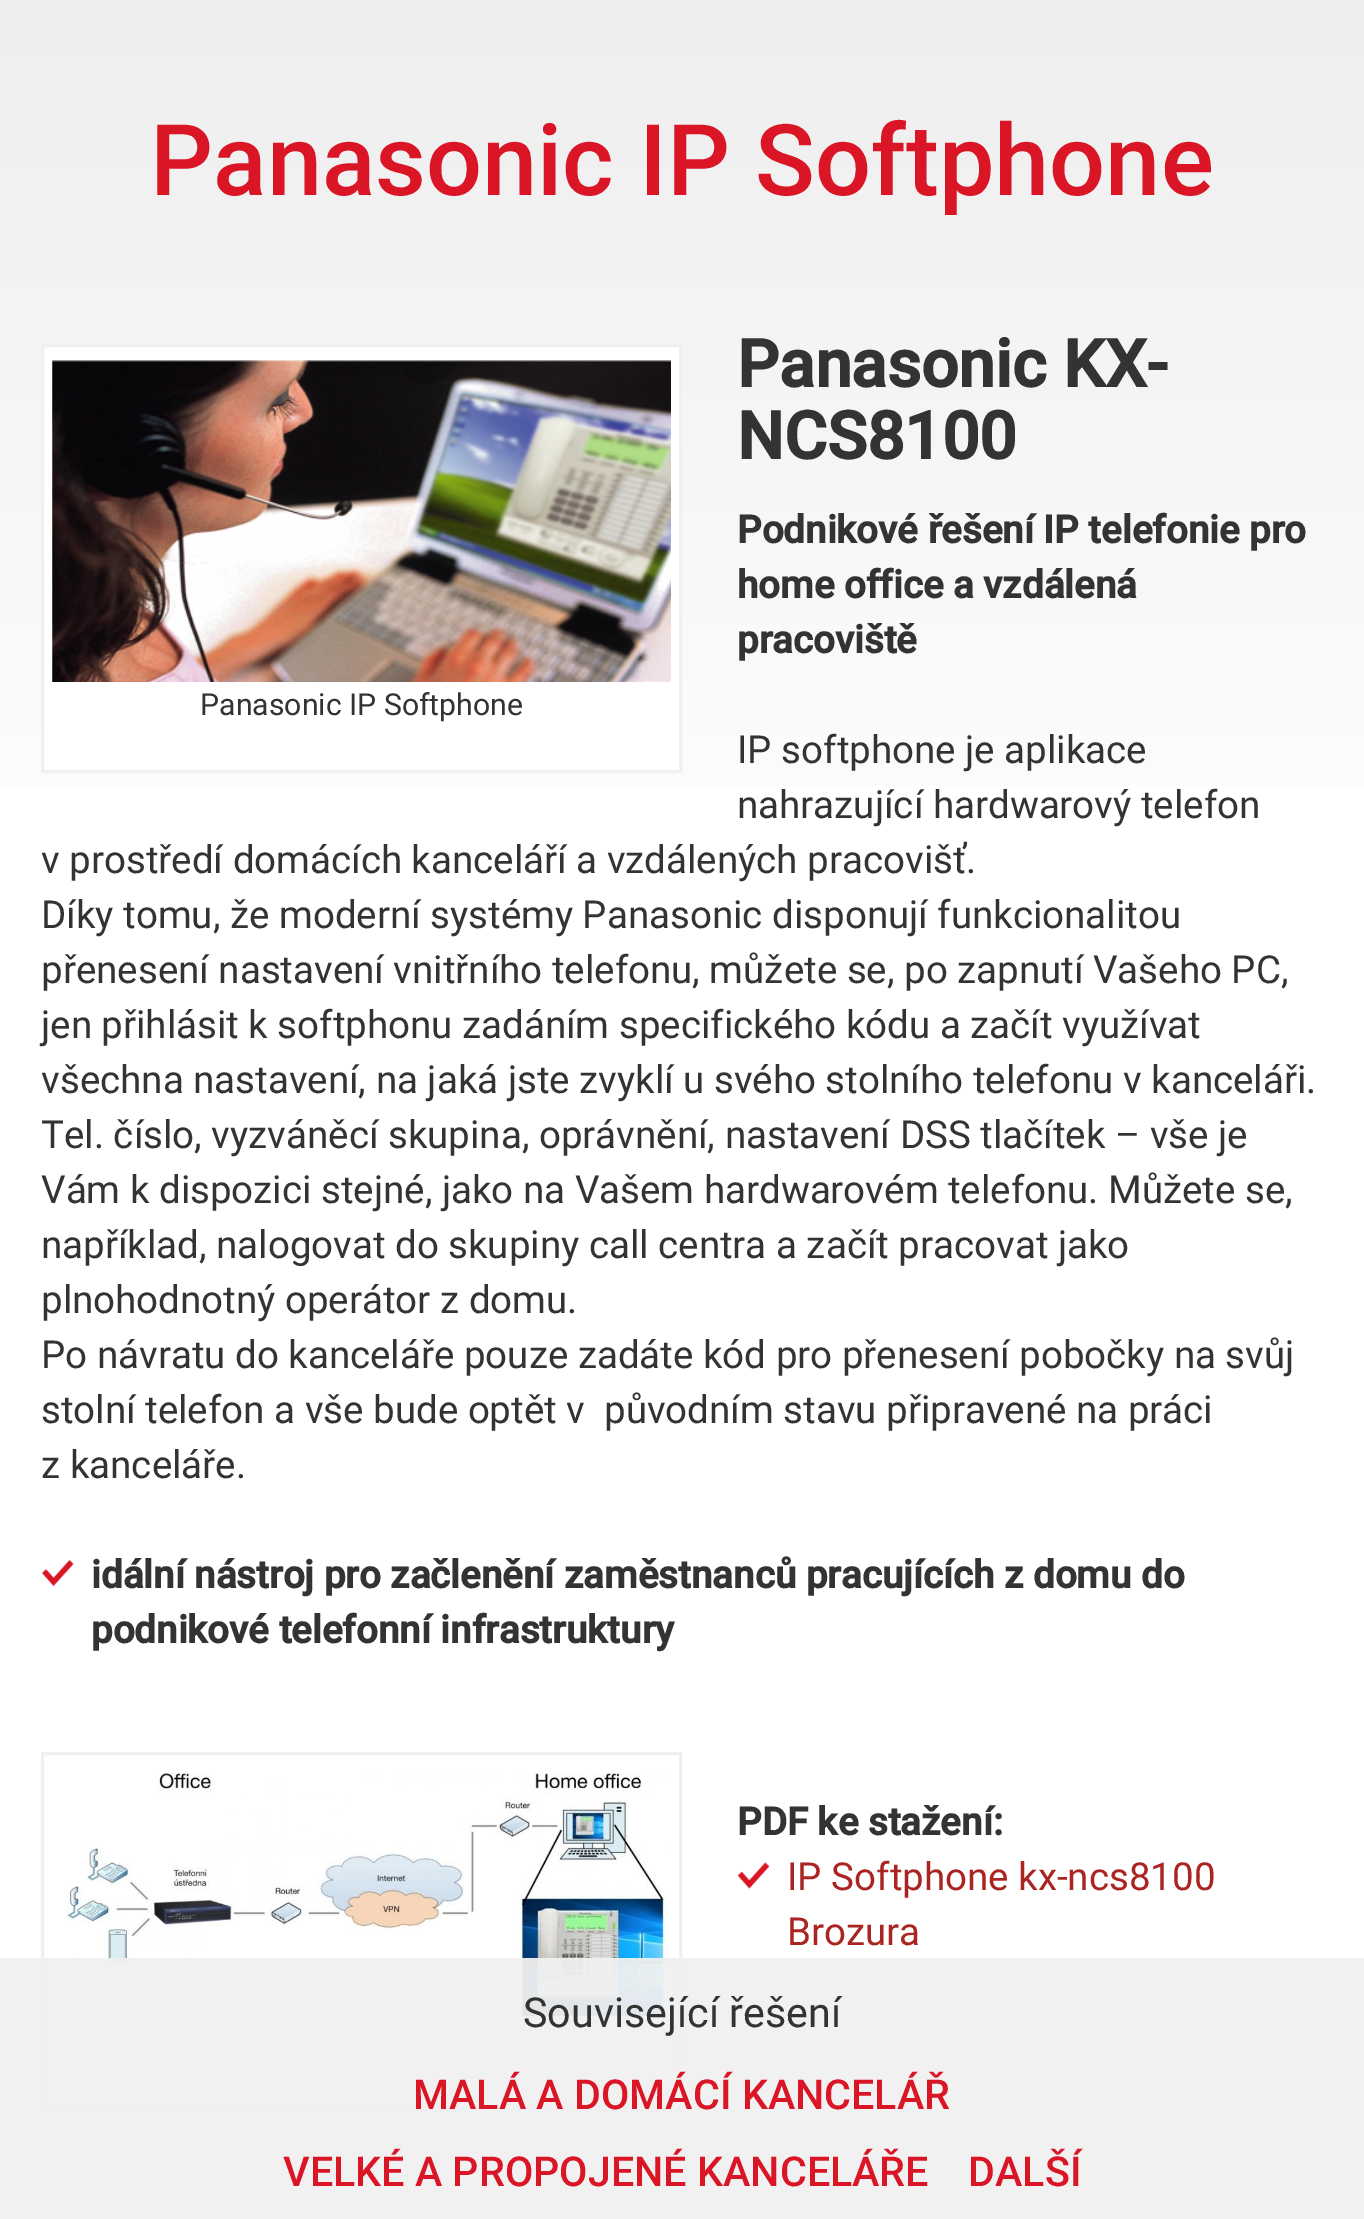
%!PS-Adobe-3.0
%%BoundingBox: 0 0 1364 2219
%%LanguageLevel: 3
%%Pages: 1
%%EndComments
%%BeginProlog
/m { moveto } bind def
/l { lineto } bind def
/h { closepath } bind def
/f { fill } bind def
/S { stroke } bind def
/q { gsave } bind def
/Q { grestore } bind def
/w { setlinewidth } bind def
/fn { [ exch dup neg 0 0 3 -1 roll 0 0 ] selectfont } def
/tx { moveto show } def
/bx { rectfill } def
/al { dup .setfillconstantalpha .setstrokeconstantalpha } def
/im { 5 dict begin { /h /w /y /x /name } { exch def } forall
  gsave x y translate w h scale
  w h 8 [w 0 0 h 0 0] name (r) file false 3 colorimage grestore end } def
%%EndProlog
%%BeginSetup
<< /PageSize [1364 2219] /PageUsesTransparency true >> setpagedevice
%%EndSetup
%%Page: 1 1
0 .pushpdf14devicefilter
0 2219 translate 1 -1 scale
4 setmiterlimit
1 setgray
0 0 1364 2219 bx
q 0 0 m 1364 0 l 1364 786 l 0 786 l h clip newpath
<< /ShadingType 2 /ColorSpace /DeviceRGB /Coords [682 0 682 921] /Extend [true true] /Function << /FunctionType 2 /Domain [0 1] /C0 [0.933 0.933 0.933] /C1 [1 1 1] /N 1 >> >> shfill Q
/Roboto-Medium 99 fn
0.855 0.086 0.149 setrgbcolor
(Panasonic IP Softphone) 150 195 tx
/Roboto-Bold 66 fn
0.2 setgray
(Panasonic KX-) 737 387 tx
(NCS8100) 737 459 tx
/Roboto-Bold 38.5 fn
(Podnikové řešení IP telefonie pro) 737 543 tx
(home office a vzdálená) 737 598 tx
(pracoviště) 737 653 tx
1 setgray
42.5 345.5 m 680.5 345.5 l 680.5 771.5 l 42.5 771.5 l h q f Q
0.941 setgray
3 w
S
(image0.raw) 52 360 619 322 im
/Roboto-Regular 30.25 fn
0.2 setgray
(Panasonic IP Softphone) 200 715 tx
/Roboto-Regular 38.5 fn
(IP softphone je aplikace) 737 763 tx
(nahrazující hardwarový telefon) 737 818 tx
(v prostředí domácích kanceláří a vzdálených pracovišť.) 41 873 tx
(Díky tomu, že moderní systémy Panasonic disponují funkcionalitou) 41 928 tx
(přenesení nastavení vnitřního telefonu, můžete se, po zapnutí Vašeho PC,) 41 983 tx
(jen přihlásit k softphonu zadáním specifického kódu a začít využívat) 41 1038 tx
(všechna nastavení, na jaká jste zvyklí u svého stolního telefonu v kanceláři.) 41 1093 tx
(Tel. číslo, vyzváněcí skupina, oprávnění, nastavení DSS tlačítek – vše je) 41 1148 tx
(Vám k dispozici stejné, jako na Vašem hardwarovém telefonu. Můžete se,) 41 1203 tx
(například, nalogovat do skupiny call centra a začít pracovat jako) 41 1258 tx
(plnohodnotný operátor z domu.) 41 1313 tx
(Po návratu do kanceláře pouze zadáte kód pro přenesení pobočky na svůj) 41 1368 tx
(stolní telefon a vše bude optět v  původním stavu připravené na práci) 41 1423 tx
(z kanceláře.) 41 1478 tx
(image1.raw) 42 1560 32 26 im
/Roboto-Bold 38.5 fn
(idální nástroj pro začlenění zaměstnanců pracujících z domu do) 91 1588 tx
(podnikové telefonní infrastruktury) 91 1643 tx
0.941 setgray
42.5 1753.5 638 357 rectstroke
(image2.raw) 66 1773 603 246 im
0.2 setgray
(PDF ke stažení:) 737 1835 tx
(image3.raw) 737 1862 33 27 im
/Roboto-Regular 38.5 fn
0.667 0.141 0.129 setrgbcolor
(IP Softphone kx-ncs8100) 787 1890 tx
(Brozura) 787 1945 tx
0.95 al
0.941 setgray
0 1958 1364 261 bx
/Roboto-Regular 41.25 fn
1 al
0.2 setgray
(Související řešení) 523 2027 tx
/Roboto-Medium 41.25 fn
0.855 0.086 0.149 setrgbcolor
(MALÁ A DOMÁCÍ KANCELÁŘ) 413 2109 tx
(VELKÉ A PROPOJENÉ KANCELÁŘE) 283 2186 tx
(DALŠÍ) 968 2186 tx
.poppdf14devicefilter showpage
%%EOF
